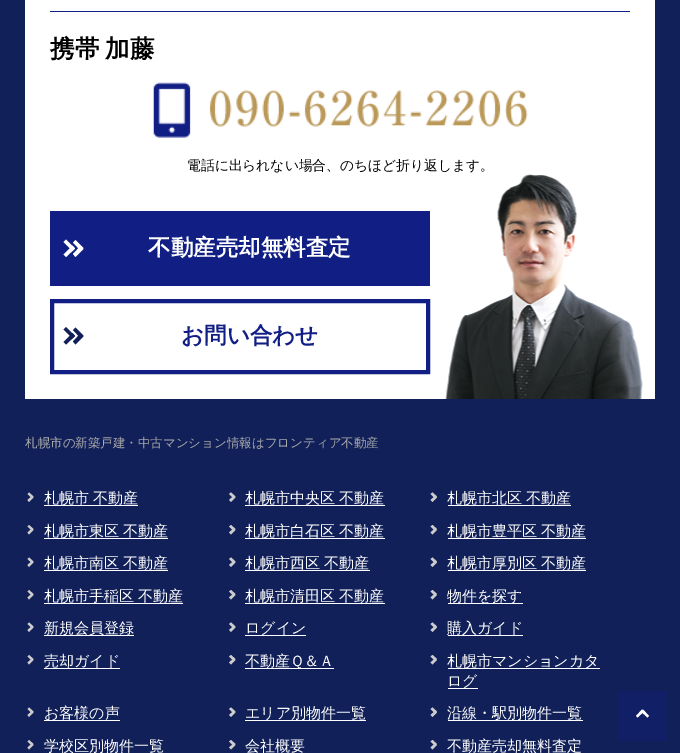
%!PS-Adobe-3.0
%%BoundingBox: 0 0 680 753
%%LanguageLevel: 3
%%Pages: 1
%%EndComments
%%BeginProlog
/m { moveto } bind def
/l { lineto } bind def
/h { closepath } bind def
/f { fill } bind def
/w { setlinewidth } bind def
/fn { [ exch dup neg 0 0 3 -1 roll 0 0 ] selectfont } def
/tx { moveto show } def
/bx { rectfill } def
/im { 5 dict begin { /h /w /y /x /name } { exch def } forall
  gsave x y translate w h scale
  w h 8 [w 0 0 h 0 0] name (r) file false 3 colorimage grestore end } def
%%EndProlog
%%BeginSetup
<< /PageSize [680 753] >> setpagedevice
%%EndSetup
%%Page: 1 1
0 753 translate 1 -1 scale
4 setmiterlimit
0.067 0.125 0.349 setrgbcolor
0 0 680 753 bx
1 setgray
25 0 630 399 bx
0.067 0.118 0.518 setrgbcolor
50 11 580 1 bx
/WenQuanYiZenHei-Bold 24.5 fn
0 setgray
50 57 m -1 0 32 (携帯 加藤) widthshow
(image0.raw) 153 82 375 56 im
/WenQuanYiZenHei-Medium 13.75 fn
(電話に出られない場合、のちほど折り返します。) 187 170 tx
0.067 0.118 0.518 setrgbcolor
50 211 380 75 bx
1 setgray
66 239.5 m 75 248.5 l 72.5 251 l 63.5 242 l h f
72.5 245.5 m 75 248.5 l 66 257 l 63.5 254.5 l h f
75.5 240 m 83.5 248 l 80.5 250.5 l 73 242.5 l h f
80.5 246 m 83.5 249 l 75.5 257 l 73 254 l h f
/WenQuanYiZenHei-Bold 22.5 fn
(不動産売却無料査定) 148 255 tx
(image1.raw) 445 174 198 225 im
0.067 0.125 0.349 setrgbcolor
66 327 m 75 336 l 72.5 338.5 l 63.5 329.5 l h f
72.5 333 m 75 336 l 66 344.5 l 63.5 342 l h f
0.067 0.118 0.518 setrgbcolor
4 w
52 301 376 71 rectstroke
0.067 0.125 0.349 setrgbcolor
75.5 327.5 m 83.5 335.5 l 80.5 338 l 73 330 l h f
80.5 333.5 m 83.5 336.5 l 75.5 344.5 l 73 341.5 l h f
0.067 0.118 0.518 setrgbcolor
(お問い合わせ) 181 343 tx
/WenQuanYiZenHei-Medium 12.5 fn
0.667 setgray
(札幌市の新築戸建・中古マンション情報はフロンティア不動産) 25 447 tx
0.8 setgray
29 492.5 m 33.5 496.5 l 32 498.5 l 27.5 494 l h f
32 496 m 33.5 497.5 l 29 502 l 27.5 500 l h f
1 setgray
44 505 94 1 bx
/WenQuanYiZenHei-Medium 15 fn
(札幌市 不動産) 44 503 tx
0.8 setgray
231 492.5 m 235.5 496.5 l 233.5 498.5 l 229 494 l h f
233.5 496 m 235.5 497.5 l 231 502 l 229 500 l h f
1 setgray
245 505 140 1 bx
(札幌市中央区 不動産) 245 503 tx
0.8 setgray
432.5 492.5 m 437 496.5 l 435 498.5 l 430.5 494 l h f
435 496 m 437 497.5 l 432.5 502 l 430.5 500 l h f
1 setgray
448 505 123 1 bx
(札幌市北区 不動産) 447 503 tx
0.8 setgray
29 525 m 33.5 529 l 32 531 l 27.5 526.5 l h f
32 528.5 m 33.5 530 l 29 534.5 l 27.5 532.5 l h f
1 setgray
44 538 124 1 bx
(札幌市東区 不動産) 44 536 tx
0.8 setgray
231 525 m 235.5 529 l 233.5 531 l 229 526.5 l h f
233.5 528.5 m 235.5 530 l 231 534.5 l 229 532.5 l h f
1 setgray
245 538 140 1 bx
(札幌市白石区 不動産) 245 536 tx
0.8 setgray
432.5 525 m 437 529 l 435 531 l 430.5 526.5 l h f
435 528.5 m 437 530 l 432.5 534.5 l 430.5 532.5 l h f
1 setgray
448 538 138 1 bx
(札幌市豊平区 不動産) 447 536 tx
0.8 setgray
29 557.5 m 33.5 561.5 l 32 563.5 l 27.5 559 l h f
32 561 m 33.5 562.5 l 29 567 l 27.5 565 l h f
1 setgray
44 570 124 1 bx
(札幌市南区 不動産) 44 568 tx
0.8 setgray
231 557.5 m 235.5 561.5 l 233.5 563.5 l 229 559 l h f
233.5 561 m 235.5 562.5 l 231 567 l 229 565 l h f
1 setgray
245 570 125 1 bx
(札幌市西区 不動産) 245 568 tx
0.8 setgray
432.5 557.5 m 437 561.5 l 435 563.5 l 430.5 559 l h f
435 561 m 437 562.5 l 432.5 567 l 430.5 565 l h f
1 setgray
448 570 138 1 bx
(札幌市厚別区 不動産) 447 568 tx
0.8 setgray
29 590 m 33.5 594 l 32 596 l 27.5 591.5 l h f
32 593.5 m 33.5 595 l 29 599.5 l 27.5 597.5 l h f
1 setgray
44 603 139 1 bx
(札幌市手稲区 不動産) 44 601 tx
0.8 setgray
231 590 m 235.5 594 l 233.5 596 l 229 591.5 l h f
233.5 593.5 m 235.5 595 l 231 599.5 l 229 597.5 l h f
1 setgray
245 603 140 1 bx
(札幌市清田区 不動産) 245 601 tx
0.8 setgray
432.5 590 m 437 594 l 435 596 l 430.5 591.5 l h f
435 593.5 m 437 595 l 432.5 599.5 l 430.5 597.5 l h f
1 setgray
448 603 75 1 bx
(物件を探す) 447 601 tx
0.8 setgray
29 622.5 m 33.5 626.5 l 32 628.5 l 27.5 624 l h f
32 626 m 33.5 627.5 l 29 632 l 27.5 630 l h f
1 setgray
44 635 90 1 bx
(新規会員登録) 44 633 tx
0.8 setgray
231 622.5 m 235.5 626.5 l 233.5 628.5 l 229 624 l h f
233.5 626 m 235.5 627.5 l 231 632 l 229 630 l h f
1 setgray
(ログイン) 245 633 tx
245 635 61 1 bx
0.8 setgray
432.5 622.5 m 437 626.5 l 435 628.5 l 430.5 624 l h f
435 626 m 437 627.5 l 432.5 632 l 430.5 630 l h f
1 setgray
448 635 75 1 bx
(購入ガイド) 447 633 tx
0.8 setgray
29 655 m 33.5 659 l 32 661 l 27.5 656.5 l h f
32 658.5 m 33.5 660 l 29 664.5 l 27.5 662.5 l h f
1 setgray
(売却ガイド) 44 666 tx
44 668 76 1 bx
0.8 setgray
231 655 m 235.5 659 l 233.5 661 l 229 656.5 l h f
233.5 658.5 m 235.5 660 l 231 664.5 l 229 662.5 l h f
1 setgray
245 668 89 1 bx
(不動産Ｑ＆Ａ) 245 666 tx
0.8 setgray
432.5 655 m 437 659 l 435 661 l 430.5 656.5 l h f
435 658.5 m 437 660 l 432.5 664.5 l 430.5 662.5 l h f
1 setgray
448 668 152 1 bx
(札幌市マンションカタ) 447 666 tx
(ログ) 447 686 tx
448 688 30 1 bx
0.8 setgray
29 707.5 m 33.5 711.5 l 32 713.5 l 27.5 709 l h f
32 711 m 33.5 712.5 l 29 717 l 27.5 715 l h f
1 setgray
44 720 76 1 bx
(お客様の声) 44 718 tx
0.8 setgray
231 707.5 m 235.5 711.5 l 233.5 713.5 l 229 709 l h f
233.5 711 m 235.5 712.5 l 231 717 l 229 715 l h f
1 setgray
245 720 121 1 bx
(エリア別物件一覧) 245 718 tx
0.8 setgray
432.5 707.5 m 437 711.5 l 435 713.5 l 430.5 709 l h f
435 711 m 437 712.5 l 432.5 717 l 430.5 715 l h f
1 setgray
448 720 135 1 bx
(沿線・駅別物件一覧) 447 718 tx
0.8 setgray
29 740 m 33.5 744 l 32 746 l 27.5 741.5 l h f
32 743.5 m 33.5 745 l 29 749.5 l 27.5 747.5 l h f
1 setgray
(学校区別物件一覧) 44 751 tx
0.8 setgray
231 740 m 235.5 744 l 233.5 746 l 229 741.5 l h f
233.5 743.5 m 235.5 745 l 231 749.5 l 229 747.5 l h f
1 setgray
(会社概要) 245 751 tx
0.8 setgray
432.5 740 m 437 744 l 435 746 l 430.5 741.5 l h f
435 743.5 m 437 745 l 432.5 749.5 l 430.5 747.5 l h f
1 setgray
(不動産売却無料査定) 447 751 tx
0.067 0.122 0.4 setrgbcolor
618 691 50 50 bx
1 setgray
636 716 m 642 709.5 l 644 711.5 l 637.5 717.5 l h f
641 711.5 m 643 709.5 l 649 716 l 647.5 717.5 l h f
showpage
%%EOF
